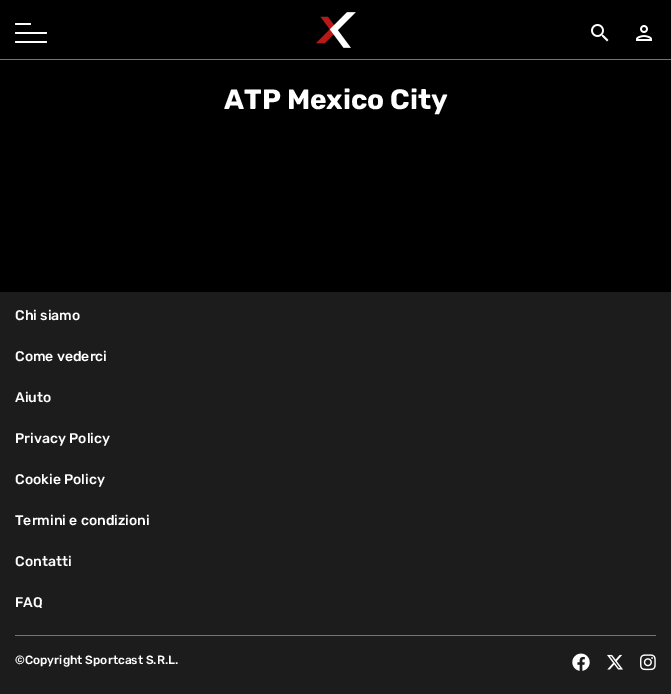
%!PS-Adobe-3.0
%%BoundingBox: 0 0 671 694
%%LanguageLevel: 3
%%Pages: 1
%%EndComments
%%BeginProlog
/f { fill } bind def
/fn { [ exch dup neg 0 0 3 -1 roll 0 0 ] selectfont } def
/tx { moveto show } def
/bx { rectfill } def
/rr { 5 dict begin { /r /h /w /y /x } { exch def } forall
  x r add y moveto x w add y 2 copy h add r arct x w add y h add x 1 index r arct
  x y h add x y r arct x y 2 copy exch w add exch r arct closepath end } def
/im { 5 dict begin { /h /w /y /x /name } { exch def } forall
  gsave x y translate w h scale
  w h 8 [w 0 0 h 0 0] name (r) file false 3 colorimage grestore end } def
%%EndProlog
%%BeginSetup
<< /PageSize [671 694] >> setpagedevice
%%EndSetup
%%Page: 1 1
0 694 translate 1 -1 scale
4 setmiterlimit
0 setgray
0 0 671 694 bx
0.459 setgray
0 59 671 1 bx
1 setgray
15 23 16 2 1 rr f
15 32 32 2 1 rr f
15 41 32 2 1 rr f
(image0.raw) 316 12 40 36 im
(image1.raw) 591 24 18 18 im
(image2.raw) 636 25 16 16 im
/Rubik-Bold 28 fn
(ATP Mexico City) 224 109 tx
0.11 0.11 0.114 setrgbcolor
0 292 671 402 bx
0.459 setgray
15 635 641 1 bx
/Rubik-Medium 14 fn
1 setgray
(Chi siamo) 15 320 tx
(Come vederci) 15 361 tx
(Aiuto) 15 402 tx
(Privacy Policy) 15 443 tx
(Cookie Policy) 15 484 tx
(Termini e condizioni) 15 525 tx
(Contatti) 15 566 tx
(FAQ) 15 607 tx
/Rubik-Medium 12 fn
(©Copyright Sportcast S.R.L.) 15 664 tx
(image3.raw) 572 653 18 18 im
(image4.raw) 607 654 16 16 im
(image5.raw) 640 654 16 17 im
showpage
%%EOF
